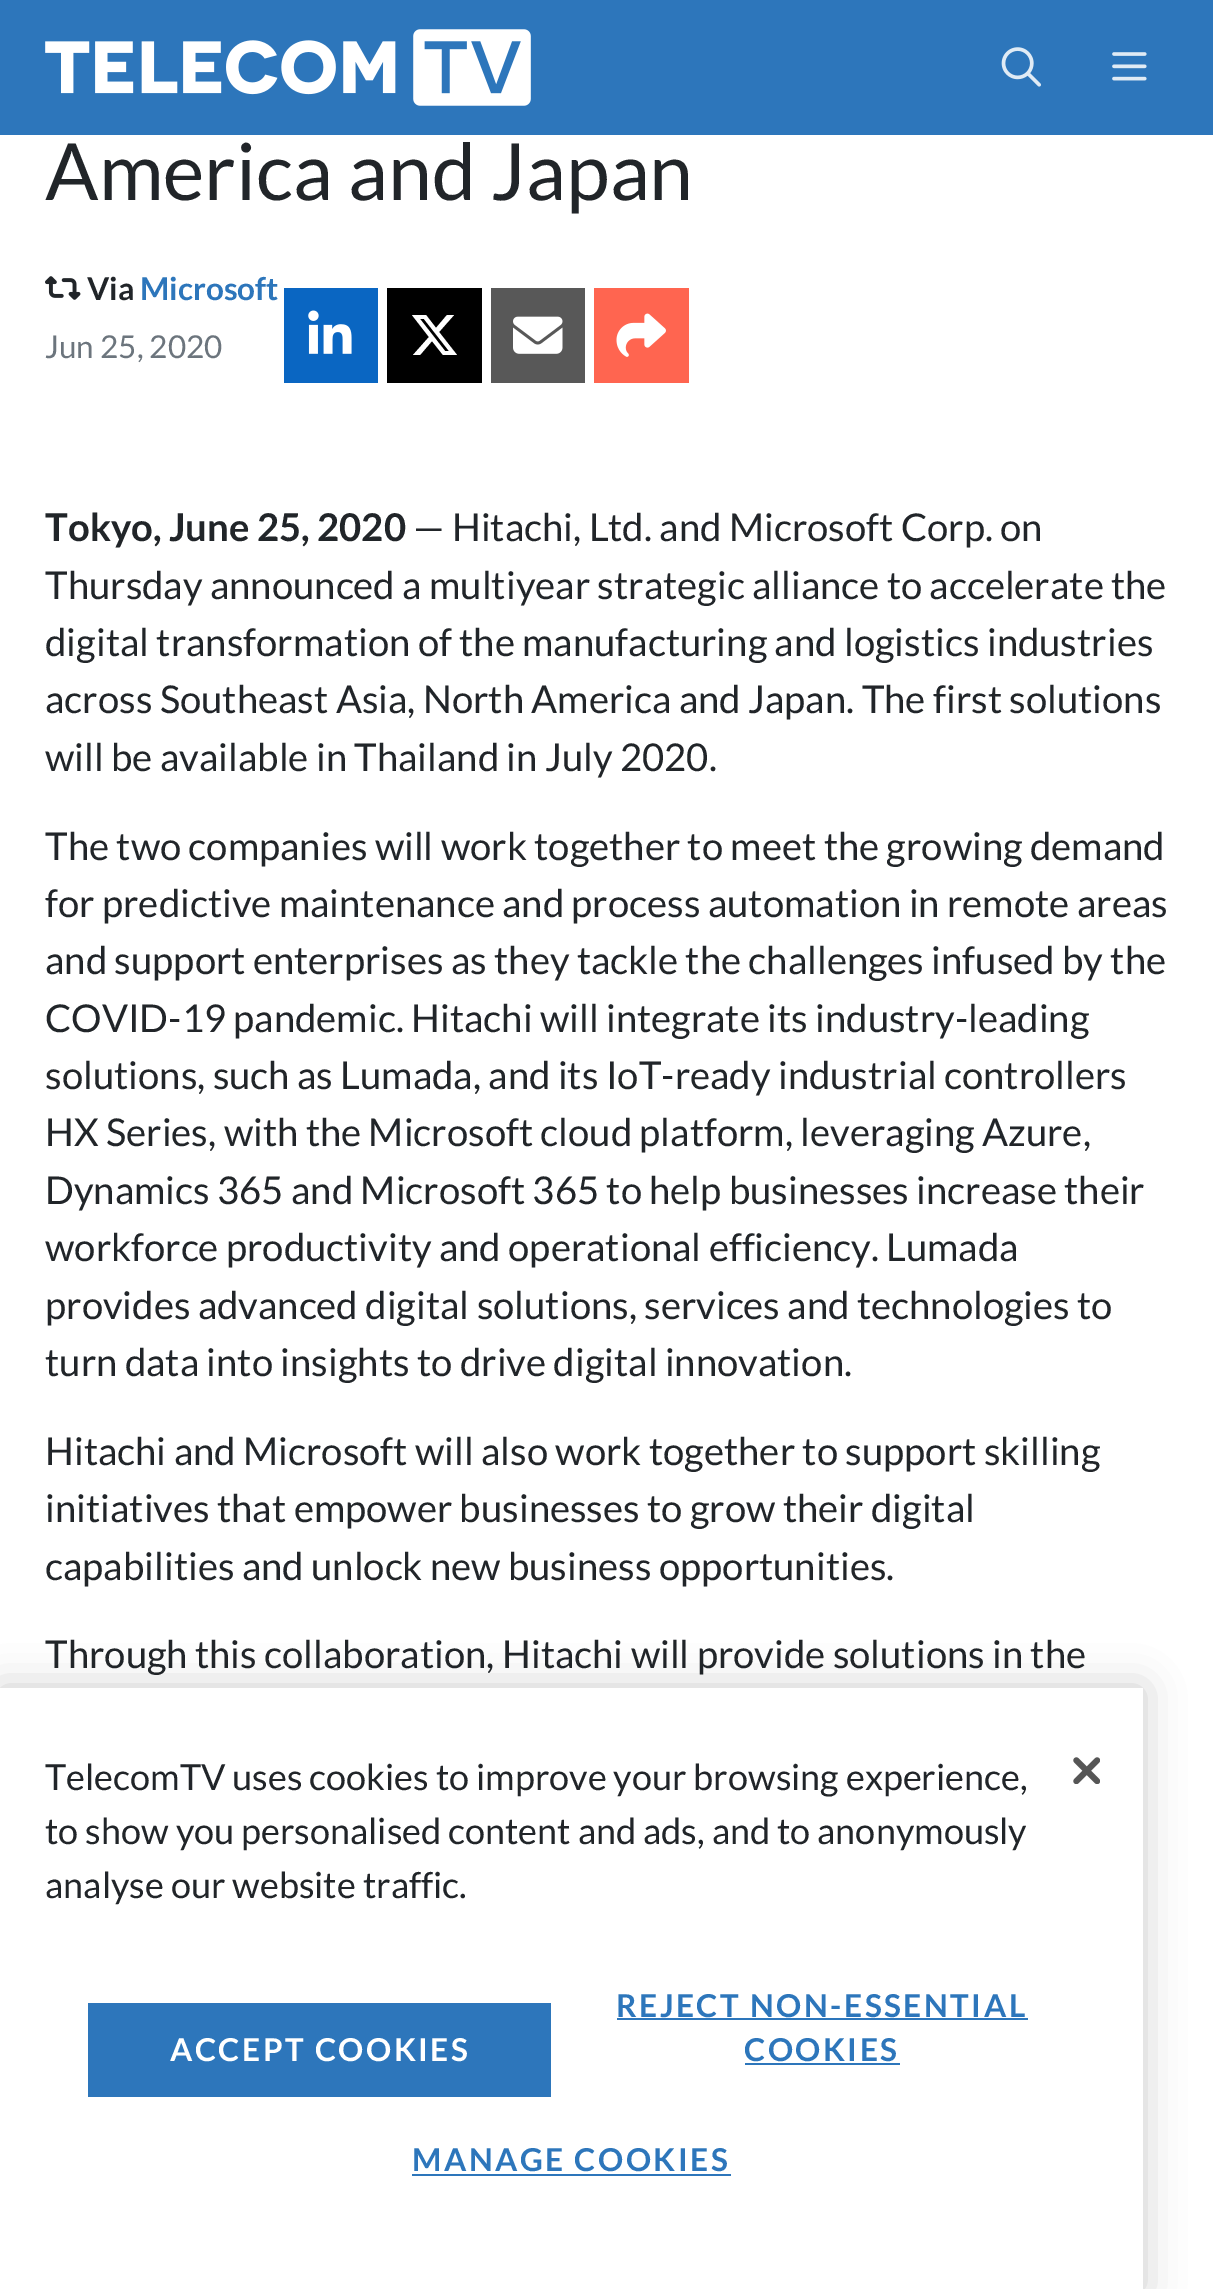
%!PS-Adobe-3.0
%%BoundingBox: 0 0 1213 2289
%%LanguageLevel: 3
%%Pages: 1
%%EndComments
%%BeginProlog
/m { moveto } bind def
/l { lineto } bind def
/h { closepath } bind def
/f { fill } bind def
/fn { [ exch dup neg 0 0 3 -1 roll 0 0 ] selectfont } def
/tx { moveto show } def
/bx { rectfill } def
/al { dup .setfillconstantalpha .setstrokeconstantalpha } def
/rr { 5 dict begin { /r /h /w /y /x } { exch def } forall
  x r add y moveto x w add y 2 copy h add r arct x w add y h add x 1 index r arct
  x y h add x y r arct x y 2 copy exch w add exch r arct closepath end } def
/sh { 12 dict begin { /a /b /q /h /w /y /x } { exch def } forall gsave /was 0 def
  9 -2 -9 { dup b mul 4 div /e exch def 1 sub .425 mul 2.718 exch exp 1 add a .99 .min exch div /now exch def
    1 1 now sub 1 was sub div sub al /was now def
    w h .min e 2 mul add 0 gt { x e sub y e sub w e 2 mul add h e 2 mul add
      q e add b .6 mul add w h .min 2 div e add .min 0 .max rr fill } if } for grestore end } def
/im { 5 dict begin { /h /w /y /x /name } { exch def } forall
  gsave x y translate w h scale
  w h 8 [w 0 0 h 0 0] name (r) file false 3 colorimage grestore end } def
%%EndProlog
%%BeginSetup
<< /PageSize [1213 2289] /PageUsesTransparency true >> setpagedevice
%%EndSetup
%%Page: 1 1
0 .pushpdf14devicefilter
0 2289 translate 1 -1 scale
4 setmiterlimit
1 setgray
0 0 1213 2289 bx
0.176 0.463 0.733 setrgbcolor
0 0 1213 135 bx
(image0.raw) 45 29 486 77 im
(image1.raw) 1001 47 40 40 im
(image2.raw) 1112 52 35 29 im
/Lato-Regular 78.75 fn
0.129 0.145 0.161 setrgbcolor
(America and Japan) 45 200 tx
(image3.raw) 45 276 36 24 im
/Lato-Bold 31.5 fn
(Via) 87 300 tx
0.176 0.463 0.733 setrgbcolor
(Microsoft) 140 300 tx
/Lato-Regular 31.5 fn
0.424 0.459 0.49 setrgbcolor
(Jun 25, 2020) 45 358 tx
0.039 0.4 0.761 setrgbcolor
284 288 94 95 bx
(image4.raw) 308 310 44 44 im
0 setgray
387 288 95 95 bx
1 setgray
447 315 m 454 315 l 439 332 l 457 355 l 443 355 l 432 341 l 420 355 l 413 355 l 429 337 l 412 315 l 426 315 l 436 328 l h 445 351 m 449 351 l 424 319 l 420 319 l h f
0.345 setgray
491 288 94 95 bx
(image5.raw) 513 316 50 38 im
1 0.396 0.314 setrgbcolor
594 288 95 95 bx
(image6.raw) 616 313 50 44 im
/Lato-Bold 38.25 fn
0.129 0.145 0.161 setrgbcolor
(Tokyo, June 25, 2020) 45 541 tx
/Lato-Regular 38.25 fn
(— Hitachi, Ltd. and Microsoft Corp. on) 413 541 tx
(Thursday announced a multiyear strategic alliance to accelerate the) 45 599 tx
(digital transformation of the manufacturing and logistics industries) 45 656 tx
(across Southeast Asia, North America and Japan. The first solutions) 45 713 tx
(will be available in Thailand in July 2020.) 45 771 tx
(The two companies will work together to meet the growing demand) 45 860 tx
(for predictive maintenance and process automation in remote areas) 45 917 tx
(and support enterprises as they tackle the challenges infused by the) 45 974 tx
(COVID-19 pandemic. Hitachi will integrate its industry-leading) 45 1032 tx
(solutions, such as Lumada, and its IoT-ready industrial controllers) 45 1089 tx
(HX Series, with the Microsoft cloud platform, leveraging Azure,) 45 1146 tx
(Dynamics 365 and Microsoft 365 to help businesses increase their) 45 1204 tx
(workforce productivity and operational efficiency. Lumada) 45 1261 tx
(provides advanced digital solutions, services and technologies to) 45 1319 tx
(turn data into insights to drive digital innovation.) 45 1376 tx
(Hitachi and Microsoft will also work together to support skilling) 45 1465 tx
(initiatives that empower businesses to grow their digital) 45 1522 tx
(capabilities and unlock new business opportunities.) 45 1580 tx
(Through this collaboration, Hitachi will provide solutions in the) 45 1668 tx
0 setgray
0 1688 1143 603 0 20 0.2 sh
1 setgray
0 1688 1143 601 bx
/Lato-Regular 36 fn
0.129 0.145 0.161 setrgbcolor
(TelecomTV uses cookies to improve your browsing experience,) 45 1790 tx
(to show you personalised content and ads, and to anonymously) 45 1844 tx
(analyse our website traffic.) 45 1898 tx
(image7.raw) 1073 1757 27 27 im
0.176 0.463 0.733 setrgbcolor
88 2003 463 94 bx
/Lato-Bold 31.5 fn
1 setgray
170 2061 m 2.5 0 (ACCEPT COOKIES) ashow
0.176 0.463 0.733 setrgbcolor
616 2017 m 2.5 0 (REJECT NON-ESSENTIAL) ashow
617 2018 411 2 bx
744 2061 m 2.5 0 (COOKIES) ashow
745 2063 155 2 bx
412 2171 m 2.5 0 (MANAGE COOKIES) ashow
412 2174 319 2 bx
.poppdf14devicefilter showpage
%%EOF
